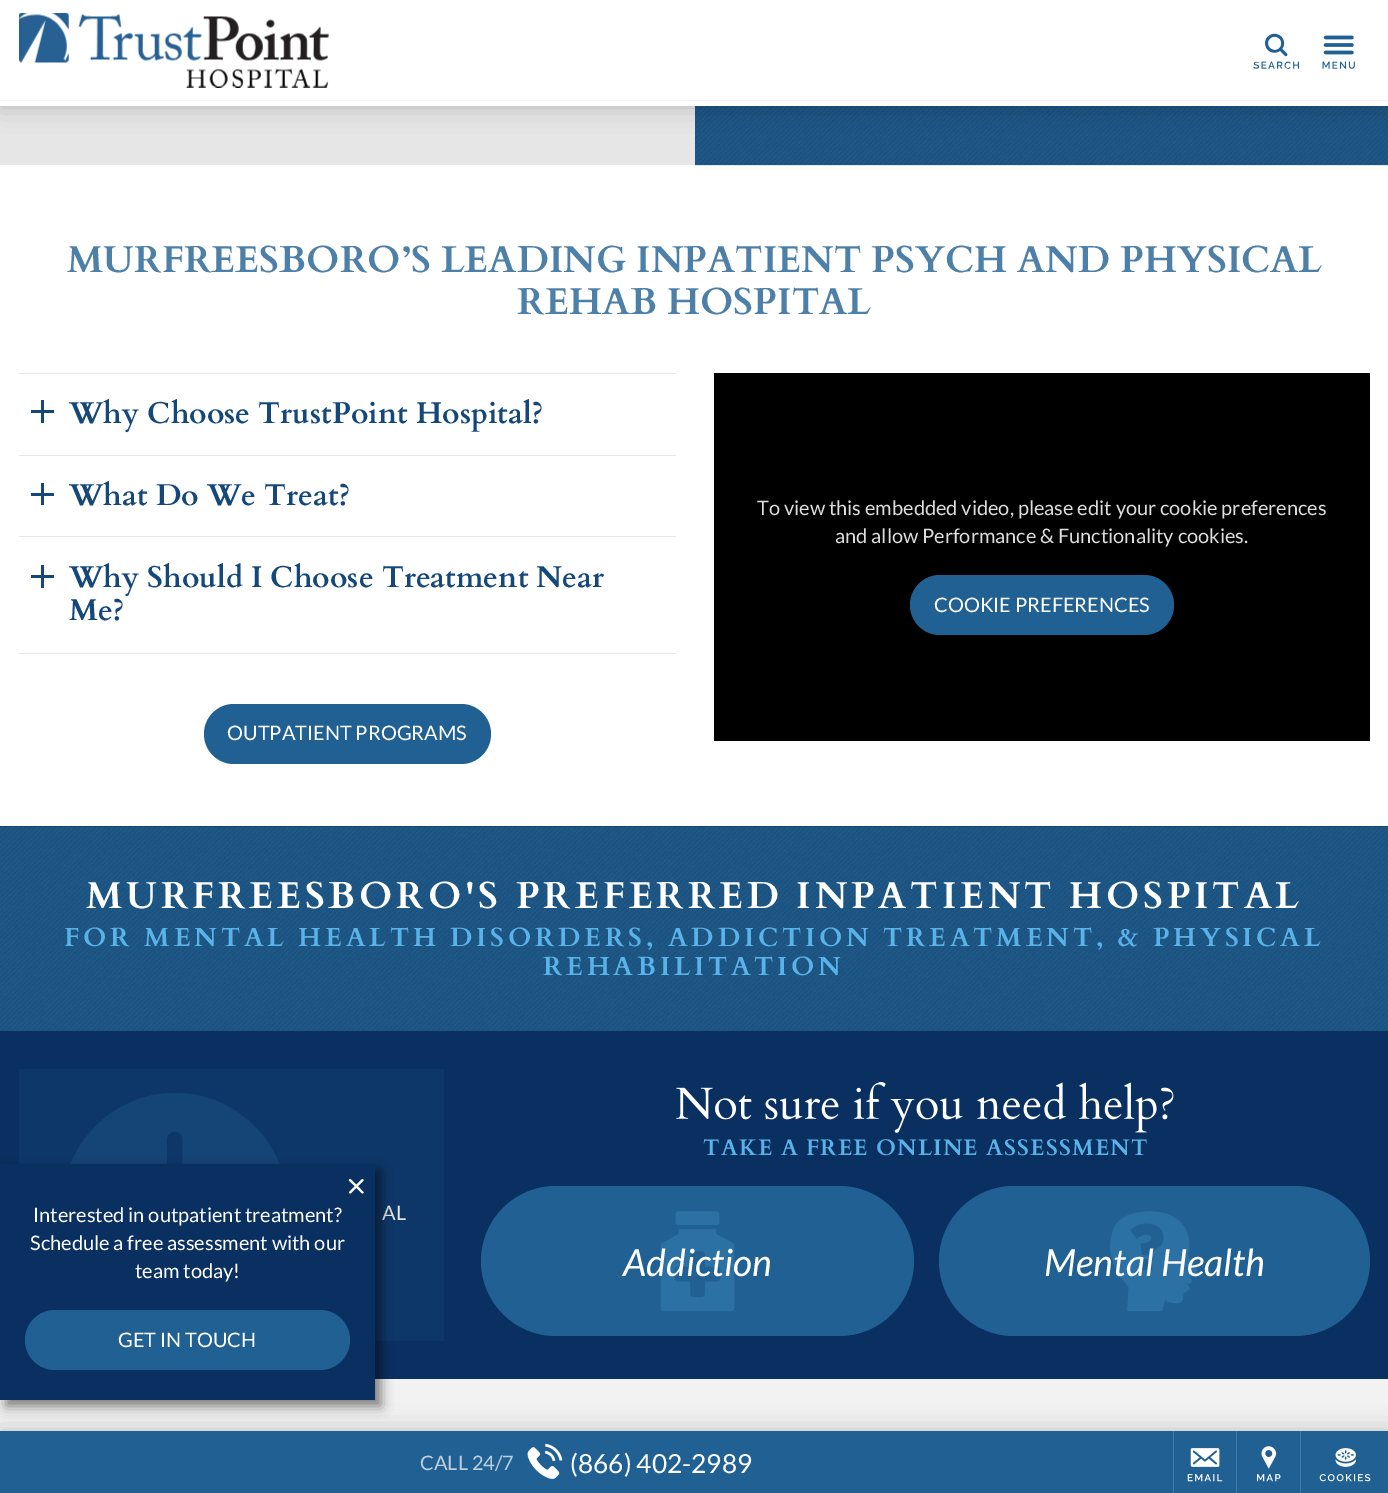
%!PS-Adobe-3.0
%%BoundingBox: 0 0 1388 1493
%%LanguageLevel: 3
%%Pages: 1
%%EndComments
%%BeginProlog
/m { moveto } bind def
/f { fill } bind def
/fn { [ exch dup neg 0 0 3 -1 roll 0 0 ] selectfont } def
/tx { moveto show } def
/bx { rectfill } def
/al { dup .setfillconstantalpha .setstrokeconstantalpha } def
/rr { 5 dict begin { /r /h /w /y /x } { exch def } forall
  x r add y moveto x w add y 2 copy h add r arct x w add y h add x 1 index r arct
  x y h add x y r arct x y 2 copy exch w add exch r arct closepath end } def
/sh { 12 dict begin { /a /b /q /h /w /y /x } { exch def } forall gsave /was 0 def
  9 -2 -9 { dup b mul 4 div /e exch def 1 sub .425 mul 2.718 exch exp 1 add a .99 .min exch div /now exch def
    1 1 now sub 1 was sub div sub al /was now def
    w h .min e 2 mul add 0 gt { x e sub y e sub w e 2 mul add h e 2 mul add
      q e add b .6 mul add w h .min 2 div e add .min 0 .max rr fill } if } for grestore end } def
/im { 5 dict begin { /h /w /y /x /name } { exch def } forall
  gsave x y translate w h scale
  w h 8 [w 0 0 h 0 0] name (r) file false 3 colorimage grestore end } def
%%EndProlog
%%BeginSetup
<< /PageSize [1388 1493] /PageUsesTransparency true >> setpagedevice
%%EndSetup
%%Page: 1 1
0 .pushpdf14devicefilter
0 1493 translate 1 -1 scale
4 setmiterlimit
1 setgray
0 0 1388 1493 bx
0.902 setgray
0 106 695 59 bx
(image3.raw) 695 165 693 1 im
(image4.raw) 695 106 693 60 im
0 setgray
0 0 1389 106 0 12.5 0.2 sh
1 setgray
0 0 1388 106 bx
(image0.raw) 19 13 310 75 im
(image1.raw) 1253 33 46 36 im
(image2.raw) 1322 35 33 34 im
0.949 setgray
0 100 1388 1 bx
/Cardo-Bold 37.5 fn
0.302 0.502 0.663 setrgbcolor
(MURFREESBORO’S LEADING INPATIENT PSYCH AND PHYSICAL) 67 272 tx
(REHAB HOSPITAL) 517 314 tx
0.902 setgray
19 373 657 1 bx
19 455 657 1 bx
0.082 0.282 0.478 setrgbcolor
41 400 3 23 bx
31 410 23 3 bx
/Cardo-Bold 30 fn
(Why Choose TrustPoint Hospital?) 69 423 tx
0.902 setgray
19 536 657 1 bx
0.082 0.282 0.478 setrgbcolor
41 483 3 22 bx
31 493 23 3 bx
(What Do We Treat?) 69 505 tx
0.902 setgray
19 653 657 1 bx
0.082 0.282 0.478 setrgbcolor
41 565 3 23 bx
31 575 23 3 bx
(Why Should I Choose Treatment Near) 69 587 tx
(Me?) 69 620 tx
0.129 0.376 0.576 setrgbcolor
204 704 287 60 30 rr f
/Lato-Regular 20 fn
1 setgray
(OUTPATIENT PROGRAMS) 227 740 tx
0 setgray
714 373 656 368 bx
0.867 setgray
(To view this embedded video, please edit your cookie preferences) 757 515 tx
(and allow Performance & Functionality cookies.) 835 543 tx
0.129 0.376 0.576 setrgbcolor
910 575 264 60 30 rr f
1 setgray
(COOKIE PREFERENCES) 934 612 tx
0.067 0.235 0.396 setrgbcolor
0 826 1388 1 bx
(image5.raw) 0 826 1388 205 im
/Cardo-Bold 37.5 fn
1 setgray
86 908 m 3.75 0 (MURFREESBORO'S PREFERRED INPATIENT HOSPITAL) ashow
/Cardo-Bold 26.25 fn
0.353 0.702 0.91 setrgbcolor
64 946 m 3.75 0 (FOR MENTAL HEALTH DISORDERS, ADDICTION TREATMENT, & PHYSICAL) ashow
543 975 m 3.75 0 (REHABILITATION) ashow
0.039 0.188 0.38 setrgbcolor
0 1031 1388 348 bx
0.051 0.216 0.412 setrgbcolor
19 1069 425 272 bx
(image6.raw) 70 1093 210 71 im
/Lato-Regular 20 fn
0.902 setgray
(AL) 382 1220 tx
(image7.raw) 676 1082 498 51 im
/Cardo-Bold 22.5 fn
0.353 0.702 0.91 setrgbcolor
703 1155 m 1.1 0 (TAKE A FREE ONLINE ASSESSMENT) ashow
0.129 0.376 0.576 setrgbcolor
481 1186 433 150 75 rr f
(image8.raw) 660 1211 75 101 im
/Lato-Italic 37.5 fn
1 setgray
(Addiction) 623 1276 tx
0.129 0.376 0.576 setrgbcolor
939 1186 431 150 75 rr f
(image9.raw) 1110 1211 88 100 im
1 setgray
(Mental Health) 1044 1276 tx
0.949 setgray
0 1379 1388 52 bx
0 setgray
0 1431 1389 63 0 12.5 0.2 sh
0.129 0.376 0.576 setrgbcolor
0 1431 1388 62 bx
/Lato-Regular 20 fn
0.737 0.812 0.875 setrgbcolor
(CALL 24/7) 420 1470 tx
(image10.raw) 527 1443 36 36 im
/Lato-Regular 26.25 fn
1 setgray
(\(866\) 402-2989) 570 1473 tx
0.259 0.471 0.639 setrgbcolor
1173 1431 1 62 bx
(image11.raw) 1187 1448 36 34 im
1236 1431 1 62 bx
(image12.raw) 1257 1446 24 36 im
1300 1431 1 62 bx
(image13.raw) 1319 1448 52 34 im
0 setgray
6 1170 375 236 0 6 0.5 sh
0.039 0.188 0.38 setrgbcolor
0 1164 375 236 bx
(image14.raw) 348 1178 16 16 im
/Lato-Regular 20 fn
1 setgray
(Interested in outpatient treatment?) 33 1222 tx
(Schedule a free assessment with our) 30 1250 tx
(team today!) 135 1278 tx
0.129 0.376 0.576 setrgbcolor
25 1310 325 60 30 rr f
1 setgray
(GET IN TOUCH) 118 1347 tx
.poppdf14devicefilter showpage
%%EOF
